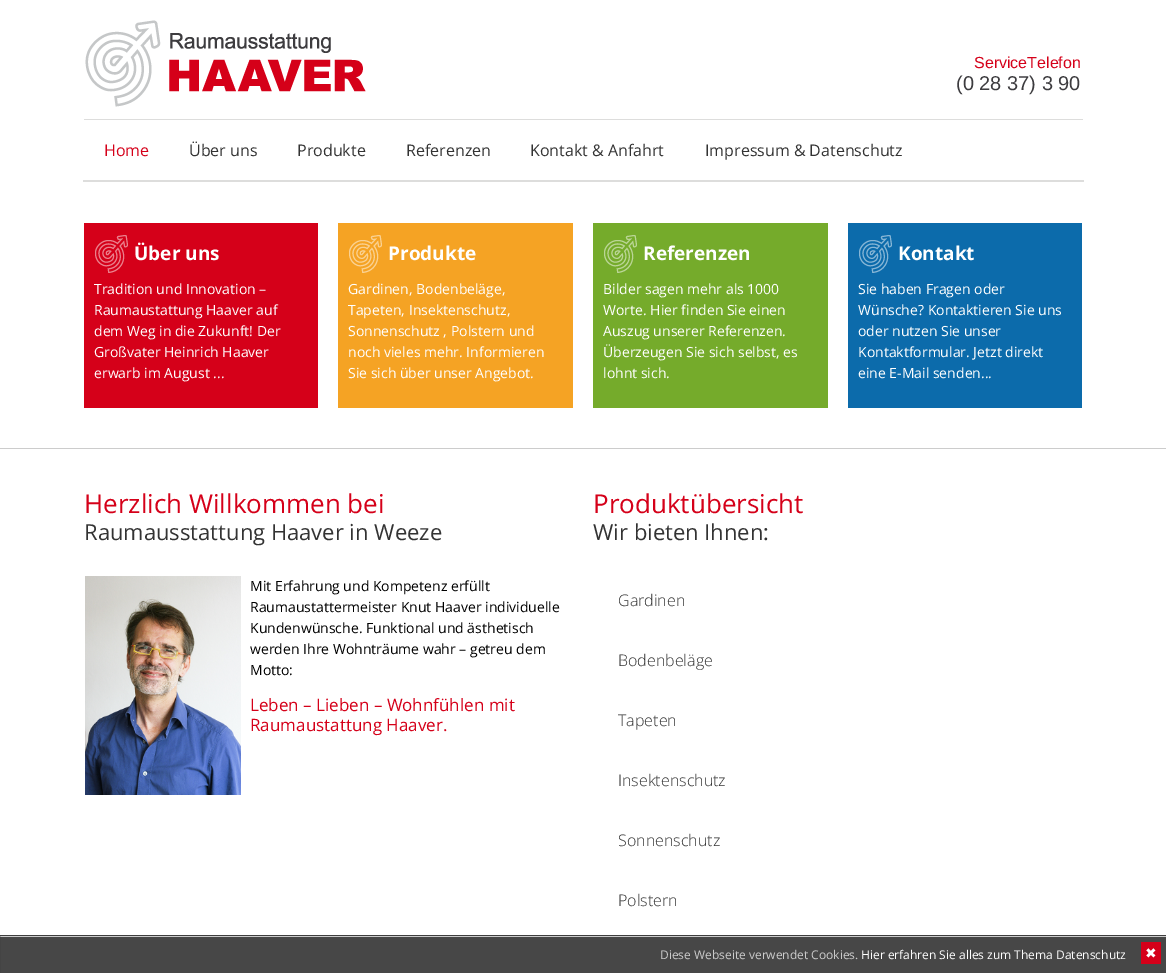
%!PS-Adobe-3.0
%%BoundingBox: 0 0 1166 973
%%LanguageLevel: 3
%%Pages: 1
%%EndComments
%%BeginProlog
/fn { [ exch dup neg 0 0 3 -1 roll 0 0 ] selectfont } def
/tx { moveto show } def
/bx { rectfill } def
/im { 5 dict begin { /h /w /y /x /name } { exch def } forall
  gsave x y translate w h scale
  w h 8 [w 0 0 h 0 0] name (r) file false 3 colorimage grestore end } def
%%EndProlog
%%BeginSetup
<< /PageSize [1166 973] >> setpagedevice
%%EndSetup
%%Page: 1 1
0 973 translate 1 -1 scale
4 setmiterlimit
1 setgray
0 0 1166 973 bx
(image0.raw) 85 20 281 87 im
/LiberationSans-Regular 16 fn
0.835 0 0.098 setrgbcolor
(ServiceTelefon) 974 68 tx
/LiberationSans-Regular 20 fn
0.239 0.235 0.247 setrgbcolor
(\(0 28 37\) 3 90) 956 90 tx
0.867 0.867 0.863 setrgbcolor
84 119 999 1 bx
/OpenSans-Regular 16 fn
0.835 0 0.098 setrgbcolor
(Home) 104 156 tx
0.2 setgray
(Über uns) 189 156 tx
(Produkte) 297 156 tx
(Referenzen) 406 156 tx
(Kontakt & Anfahrt) 530 156 tx
(Impressum & Datenschutz) 705 156 tx
0.867 0.867 0.863 setrgbcolor
83 180 1001 2 bx
0.835 0 0.098 setrgbcolor
84 223 234 185 bx
(image1.raw) 95 235 33 38 im
/OpenSans-Bold 19 fn
1 setgray
(Über uns) 134 260 tx
/OpenSans-Regular 14 fn
(Tradition und Innovation –) 94 294 tx
(Raumaustattung Haaver auf) 94 315 tx
(dem Weg in die Zukunft! Der) 94 336 tx
(Großvater Heinrich Haaver) 94 357 tx
(erwarb im August ...) 94 378 tx
0.961 0.639 0.141 setrgbcolor
338 223 235 185 bx
(image2.raw) 349 235 33 38 im
/OpenSans-Bold 19 fn
1 setgray
(Produkte) 388 260 tx
/OpenSans-Regular 14 fn
(Gardinen, Bodenbeläge,) 348 294 tx
(Tapeten, Insektenschutz,) 348 315 tx
(Sonnenschutz , Polstern und) 348 336 tx
(noch vieles mehr. Informieren) 348 357 tx
(Sie sich über unser Angebot.) 348 378 tx
0.459 0.671 0.169 setrgbcolor
593 223 235 185 bx
(image3.raw) 604 235 33 38 im
/OpenSans-Bold 19 fn
1 setgray
(Referenzen) 643 260 tx
/OpenSans-Regular 14 fn
(Bilder sagen mehr als 1000) 603 294 tx
(Worte. Hier finden Sie einen) 603 315 tx
(Auszug unserer Referenzen.) 603 336 tx
(Überzeugen Sie sich selbst, es) 603 357 tx
(lohnt sich.) 603 378 tx
0.047 0.42 0.671 setrgbcolor
848 223 234 185 bx
(image4.raw) 859 235 33 38 im
/OpenSans-Bold 19 fn
1 setgray
(Kontakt) 898 260 tx
/OpenSans-Regular 14 fn
(Sie haben Fragen oder) 858 294 tx
(Wünsche? Kontaktieren Sie uns) 858 315 tx
(oder nutzen Sie unser) 858 336 tx
(Kontaktformular. Jetzt direkt) 858 357 tx
(eine E-Mail senden...) 858 378 tx
0.8 setgray
0 448 1166 1 bx
/OpenSans-Regular 26 fn
0.835 0 0.098 setrgbcolor
(Herzlich Willkommen bei) 84 513 tx
/OpenSans-Regular 22 fn
0.2 setgray
(Raumausstattung Haaver in Weeze) 84 540 tx
(image5.raw) 85 576 156 219 im
/OpenSans-Regular 14 fn
0 setgray
(Mit Erfahrung und Kompetenz erfüllt) 250 591 tx
(Raumaustattermeister Knut Haaver individuelle) 250 612 tx
(Kundenwünsche. Funktional und ästhetisch) 250 633 tx
(werden Ihre Wohnträume wahr – getreu dem) 250 654 tx
(Motto:) 250 675 tx
/OpenSans-Regular 17 fn
0.835 0 0.098 setrgbcolor
(Leben – Lieben – Wohnfühlen mit) 250 711 tx
(Raumaustattung Haaver.) 250 731 tx
/OpenSans-Regular 26 fn
(Produktübersicht) 593 513 tx
/OpenSans-Regular 22 fn
0.2 setgray
(Wir bieten Ihnen:) 593 540 tx
/OpenSans-Light 16 fn
(Gardinen) 618 606 tx
(Bodenbeläge) 618 666 tx
(Tapeten) 618 726 tx
(Insektenschutz) 618 786 tx
(Sonnenschutz) 618 846 tx
(Polstern) 618 906 tx
0.278 setgray
0 937 1166 36 bx
0.247 setgray
-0.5 935.5 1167 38 rectstroke
/OpenSans-Regular 12 fn
0.8 setgray
(Diese Webseite verwendet Cookies.) 660 959 tx
1 setgray
(Hier erfahren Sie alles zum Thema Datenschutz) 861 959 tx
0.835 0 0.098 setrgbcolor
1141 942 20 22 bx
/DejaVuSans-Regular 14 fn
1 setgray
(✖) 1145 958 tx
showpage
%%EOF
